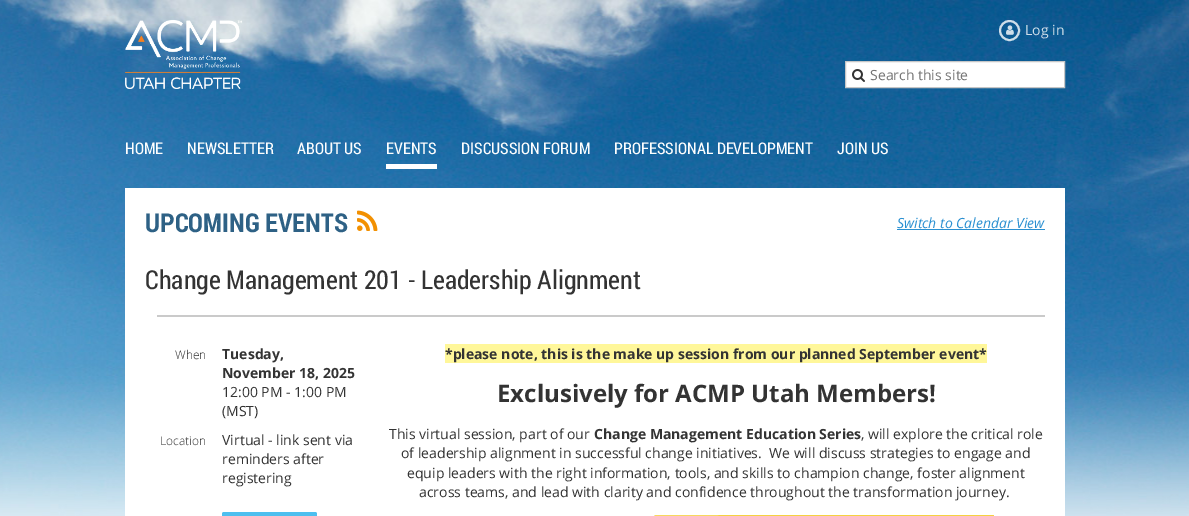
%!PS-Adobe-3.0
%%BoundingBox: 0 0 1189 516
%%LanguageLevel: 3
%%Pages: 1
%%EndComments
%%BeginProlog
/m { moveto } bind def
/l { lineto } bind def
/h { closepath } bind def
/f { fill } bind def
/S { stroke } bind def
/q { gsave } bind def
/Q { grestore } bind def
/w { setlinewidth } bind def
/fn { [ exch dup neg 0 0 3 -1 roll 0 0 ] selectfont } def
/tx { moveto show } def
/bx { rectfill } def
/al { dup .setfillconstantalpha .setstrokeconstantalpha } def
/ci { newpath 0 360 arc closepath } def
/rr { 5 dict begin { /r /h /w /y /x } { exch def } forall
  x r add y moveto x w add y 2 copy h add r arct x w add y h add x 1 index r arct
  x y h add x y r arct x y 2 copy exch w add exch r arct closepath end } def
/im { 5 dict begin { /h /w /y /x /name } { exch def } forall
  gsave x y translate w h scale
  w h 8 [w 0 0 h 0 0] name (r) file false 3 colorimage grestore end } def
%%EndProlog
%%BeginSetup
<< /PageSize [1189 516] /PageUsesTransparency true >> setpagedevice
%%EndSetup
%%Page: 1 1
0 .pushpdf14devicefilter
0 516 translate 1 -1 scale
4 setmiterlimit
1 setgray
0 0 1189 516 bx
(image0.raw) 0 0 1189 516 im
(image1.raw) 125 20 117 69 im
0.8 al
2 w
1009.5 30.5 9.5 ci S
1 al
(image2.raw) 1006 25 8 10 im
/OpenSans-Regular 14 fn
0.812 0.871 0.914 setrgbcolor
(Log in) 1025 35 tx
1 setgray
845.5 61.5 m 1064.5 61.5 l 1064.5 87.5 l 845.5 87.5 l h q f Q
0.776 setgray
1 w
S
(image3.raw) 852 69 13 13 im
0.459 setgray
(Search this site) 870 80 tx
/RobotoCondensed-Regular 16 fn
0.996 setgray
(HOME) 125 154 tx
(NEWSLETTER) 187 154 tx
(ABOUT US) 297 154 tx
(EVENTS) 386 154 tx
1 setgray
386 164 51 5 bx
0.996 setgray
(DISCUSSION FORUM) 461 154 tx
(PROFESSIONAL DEVELOPMENT) 614 154 tx
(JOIN US) 837 154 tx
1 setgray
125 188 940 328 bx
/RobotoCondensed-Bold 26 fn
0.18 0.38 0.522 setrgbcolor
(UPCOMING EVENTS) 145 232 tx
(image4.raw) 357 210 21 21 im
/OpenSans-Italic 14 fn
0.169 0.565 0.82 setrgbcolor
(Switch to Calendar View) 897 228 tx
897 229 148 1 bx
/RobotoCondensed-Regular 26 fn
0.2 setgray
(Change Management 201 - Leadership Alignment) 145 289 tx
0.792 setgray
157 315 888 2 bx
/OpenSans-Light 12 fn
0.2 setgray
(When) 175 359 tx
/OpenSans-Bold 14 fn
(Tuesday,) 222 359 tx
(November 18, 2025) 222 378 tx
/OpenSans-Regular 14 fn
(12:00 PM - 1:00 PM) 222 397 tx
(\(MST\)) 222 416 tx
/OpenSans-Light 12 fn
(Location) 160 445 tx
/OpenSans-Regular 14 fn
(Virtual - link sent via) 222 445 tx
(reminders after) 222 464 tx
(registering) 222 483 tx
0.302 0.749 0.937 setrgbcolor
222 512 95 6 2 rr f
1 0.969 0.604 setrgbcolor
445 344 542 19 bx
/OpenSans-Bold 14 fn
0.2 setgray
(*please note, this is the make up session from our planned September event*) 445 359 tx
/OpenSans-Bold 24 fn
(Exclusively for ACMP Utah Members!) 497 402 tx
/OpenSans-Regular 14 fn
(This virtual session, part of our) 389 439 tx
/OpenSans-Bold 14 fn
(Change Management Education Series) 594 439 tx
/OpenSans-Regular 14 fn
(, will explore the critical role) 861 439 tx
(of leadership alignment in successful change initiatives.  We will discuss strategies to engage and) 401 458 tx
(equip leaders with the right information, tools, and skills to champion change, foster alignment) 407 478 tx
(across teams, and lead with clarity and confidence throughout the transformation journey.) 419 497 tx
(image5.raw) 654 515 340 1 im
.poppdf14devicefilter showpage
%%EOF
